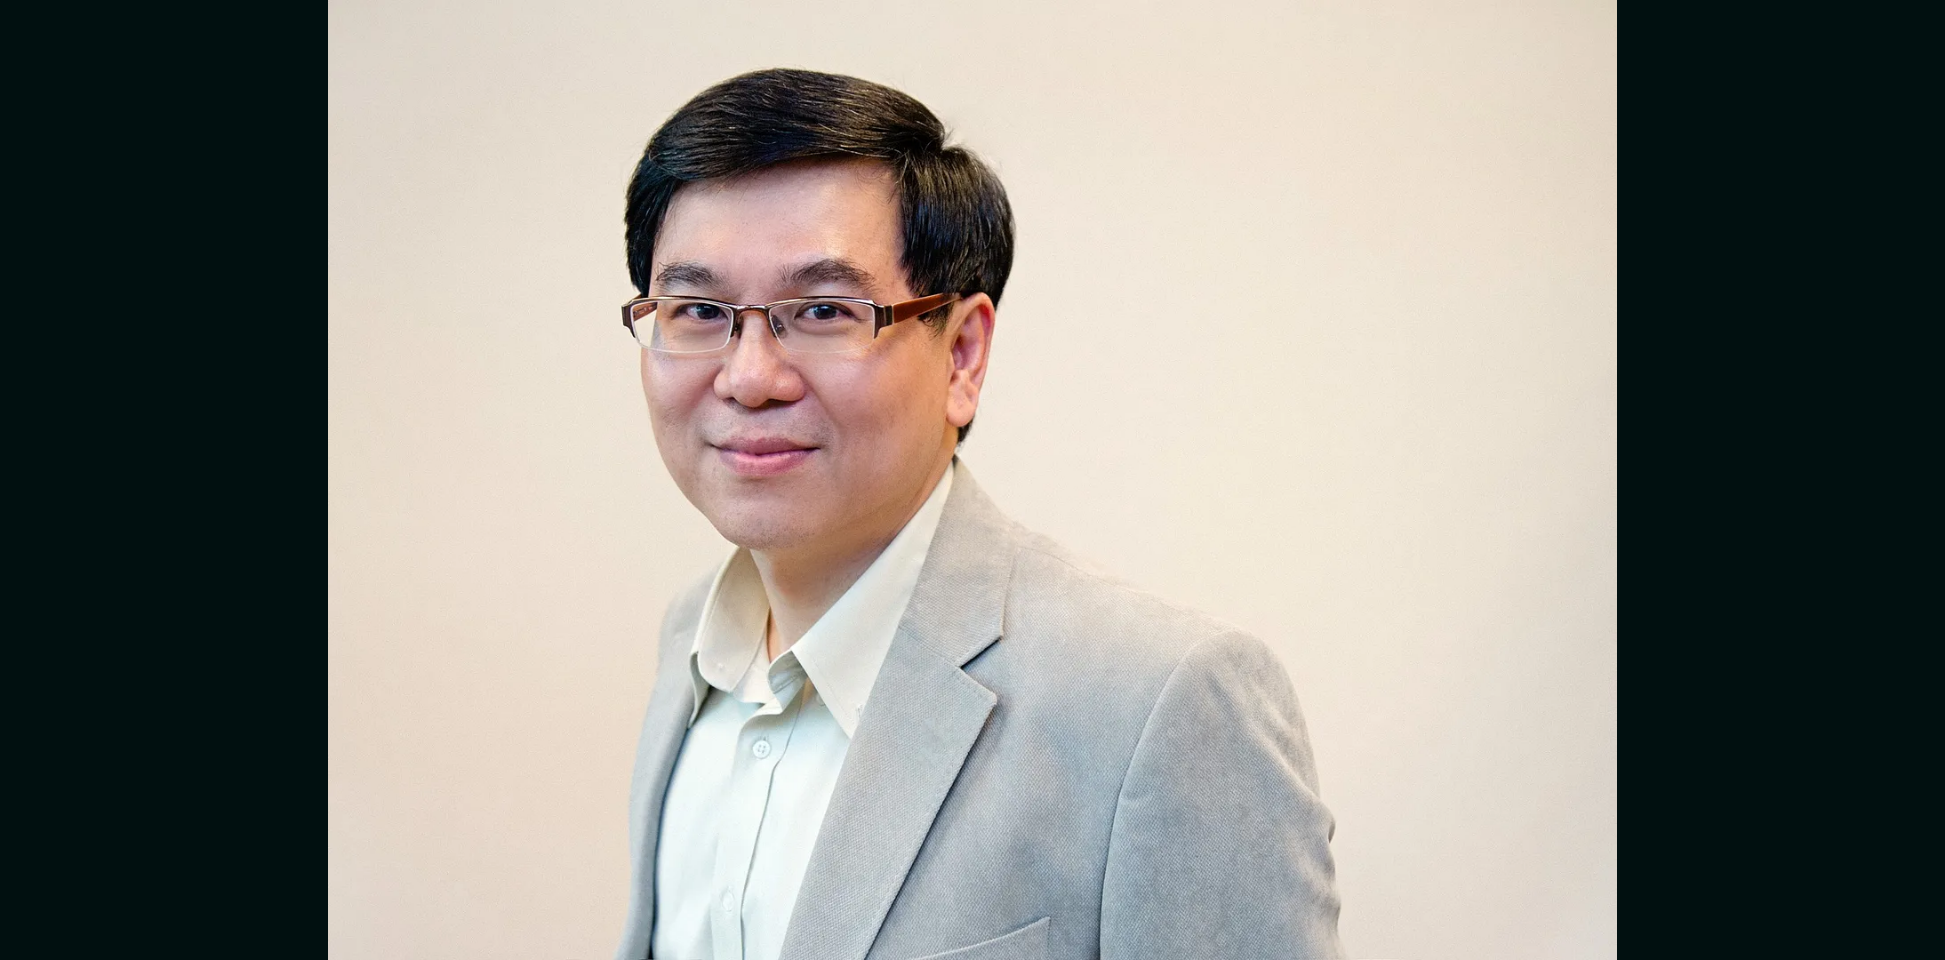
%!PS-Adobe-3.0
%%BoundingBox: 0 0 1945 960
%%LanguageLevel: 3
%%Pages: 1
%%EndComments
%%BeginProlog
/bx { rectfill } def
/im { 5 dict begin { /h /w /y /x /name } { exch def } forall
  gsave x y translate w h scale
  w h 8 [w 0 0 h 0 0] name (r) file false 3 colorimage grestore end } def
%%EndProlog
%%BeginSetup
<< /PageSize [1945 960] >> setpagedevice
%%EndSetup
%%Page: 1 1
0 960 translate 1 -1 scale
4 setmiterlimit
0.004 0.063 0.063 setrgbcolor
0 0 1945 960 bx
(image0.raw) 328 0 1289 960 im
showpage
%%EOF
